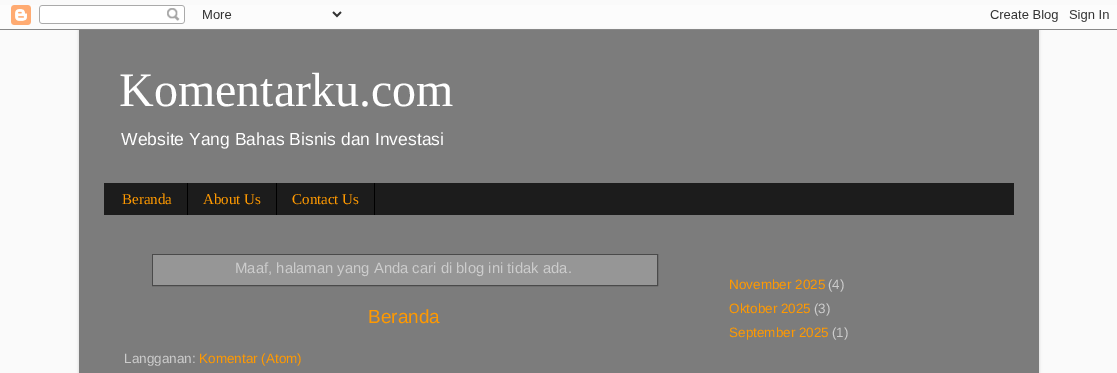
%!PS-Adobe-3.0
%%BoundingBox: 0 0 1117 373
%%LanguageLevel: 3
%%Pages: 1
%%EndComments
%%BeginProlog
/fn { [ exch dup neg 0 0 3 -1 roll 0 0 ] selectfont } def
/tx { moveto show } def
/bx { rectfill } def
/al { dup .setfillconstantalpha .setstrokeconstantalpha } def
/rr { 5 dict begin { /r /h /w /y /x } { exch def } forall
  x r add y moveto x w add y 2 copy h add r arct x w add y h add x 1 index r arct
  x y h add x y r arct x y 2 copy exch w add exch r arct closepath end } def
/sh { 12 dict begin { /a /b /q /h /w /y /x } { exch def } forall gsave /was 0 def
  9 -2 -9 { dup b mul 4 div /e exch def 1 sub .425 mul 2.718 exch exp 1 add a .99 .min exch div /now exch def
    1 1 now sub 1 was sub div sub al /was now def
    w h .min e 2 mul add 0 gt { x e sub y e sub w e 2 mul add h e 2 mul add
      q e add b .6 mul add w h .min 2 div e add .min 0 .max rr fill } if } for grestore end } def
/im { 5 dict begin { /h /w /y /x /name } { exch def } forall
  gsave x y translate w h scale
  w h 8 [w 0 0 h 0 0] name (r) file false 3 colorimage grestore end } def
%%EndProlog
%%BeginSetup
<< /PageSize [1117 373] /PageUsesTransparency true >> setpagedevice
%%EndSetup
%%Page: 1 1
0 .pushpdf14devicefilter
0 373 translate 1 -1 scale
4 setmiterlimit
0.98 setgray
0 0 1117 373 bx
0 setgray
79 30 960 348 0 1.5 0.15 sh
(image0.raw) 0 5 1117 25 im
0.486 setgray
79 30 960 343 bx
/LiberationSerif-Regular 48 fn
1 setgray
(Komentarku.com) 119 106 tx
/LiberationSans-Regular 17.5 fn
(Website Yang Bahas Bisnis dan Investasi) 121 145 tx
0.11 setgray
104 183 910 32 bx
0 setgray
187 183 1 32 bx
/LiberationSerif-Regular 15 fn
1 0.6 0 setrgbcolor
(Beranda) 122 204 tx
0 setgray
276 183 1 32 bx
1 0.6 0 setrgbcolor
(About Us) 203 204 tx
0 setgray
374 183 1 32 bx
1 0.6 0 setrgbcolor
(Contact Us) 292 204 tx
0.29 setgray
152.5 254.5 505 31 rectstroke
0.588 setgray
153 255 504 30 bx
/LiberationSans-Regular 14.85 fn
0.8 setgray
(Maaf, halaman yang Anda cari di blog ini tidak ada.) 235 273 tx
/LiberationSans-Regular 19 fn
1 0.6 0 setrgbcolor
(Beranda) 368 323 tx
/LiberationSans-Regular 13.5 fn
0.8 setgray
(Langganan:) 124 363 tx
1 0.6 0 setrgbcolor
(Komentar \(Atom\)) 199 363 tx
(November 2025) 729 289 tx
0.8 setgray
(\(4\)) 828 289 tx
1 0.6 0 setrgbcolor
(Oktober 2025) 729 313 tx
0.8 setgray
(\(3\)) 814 313 tx
1 0.6 0 setrgbcolor
(September 2025) 729 337 tx
0.8 setgray
(\(1\)) 832 337 tx
.poppdf14devicefilter showpage
%%EOF
